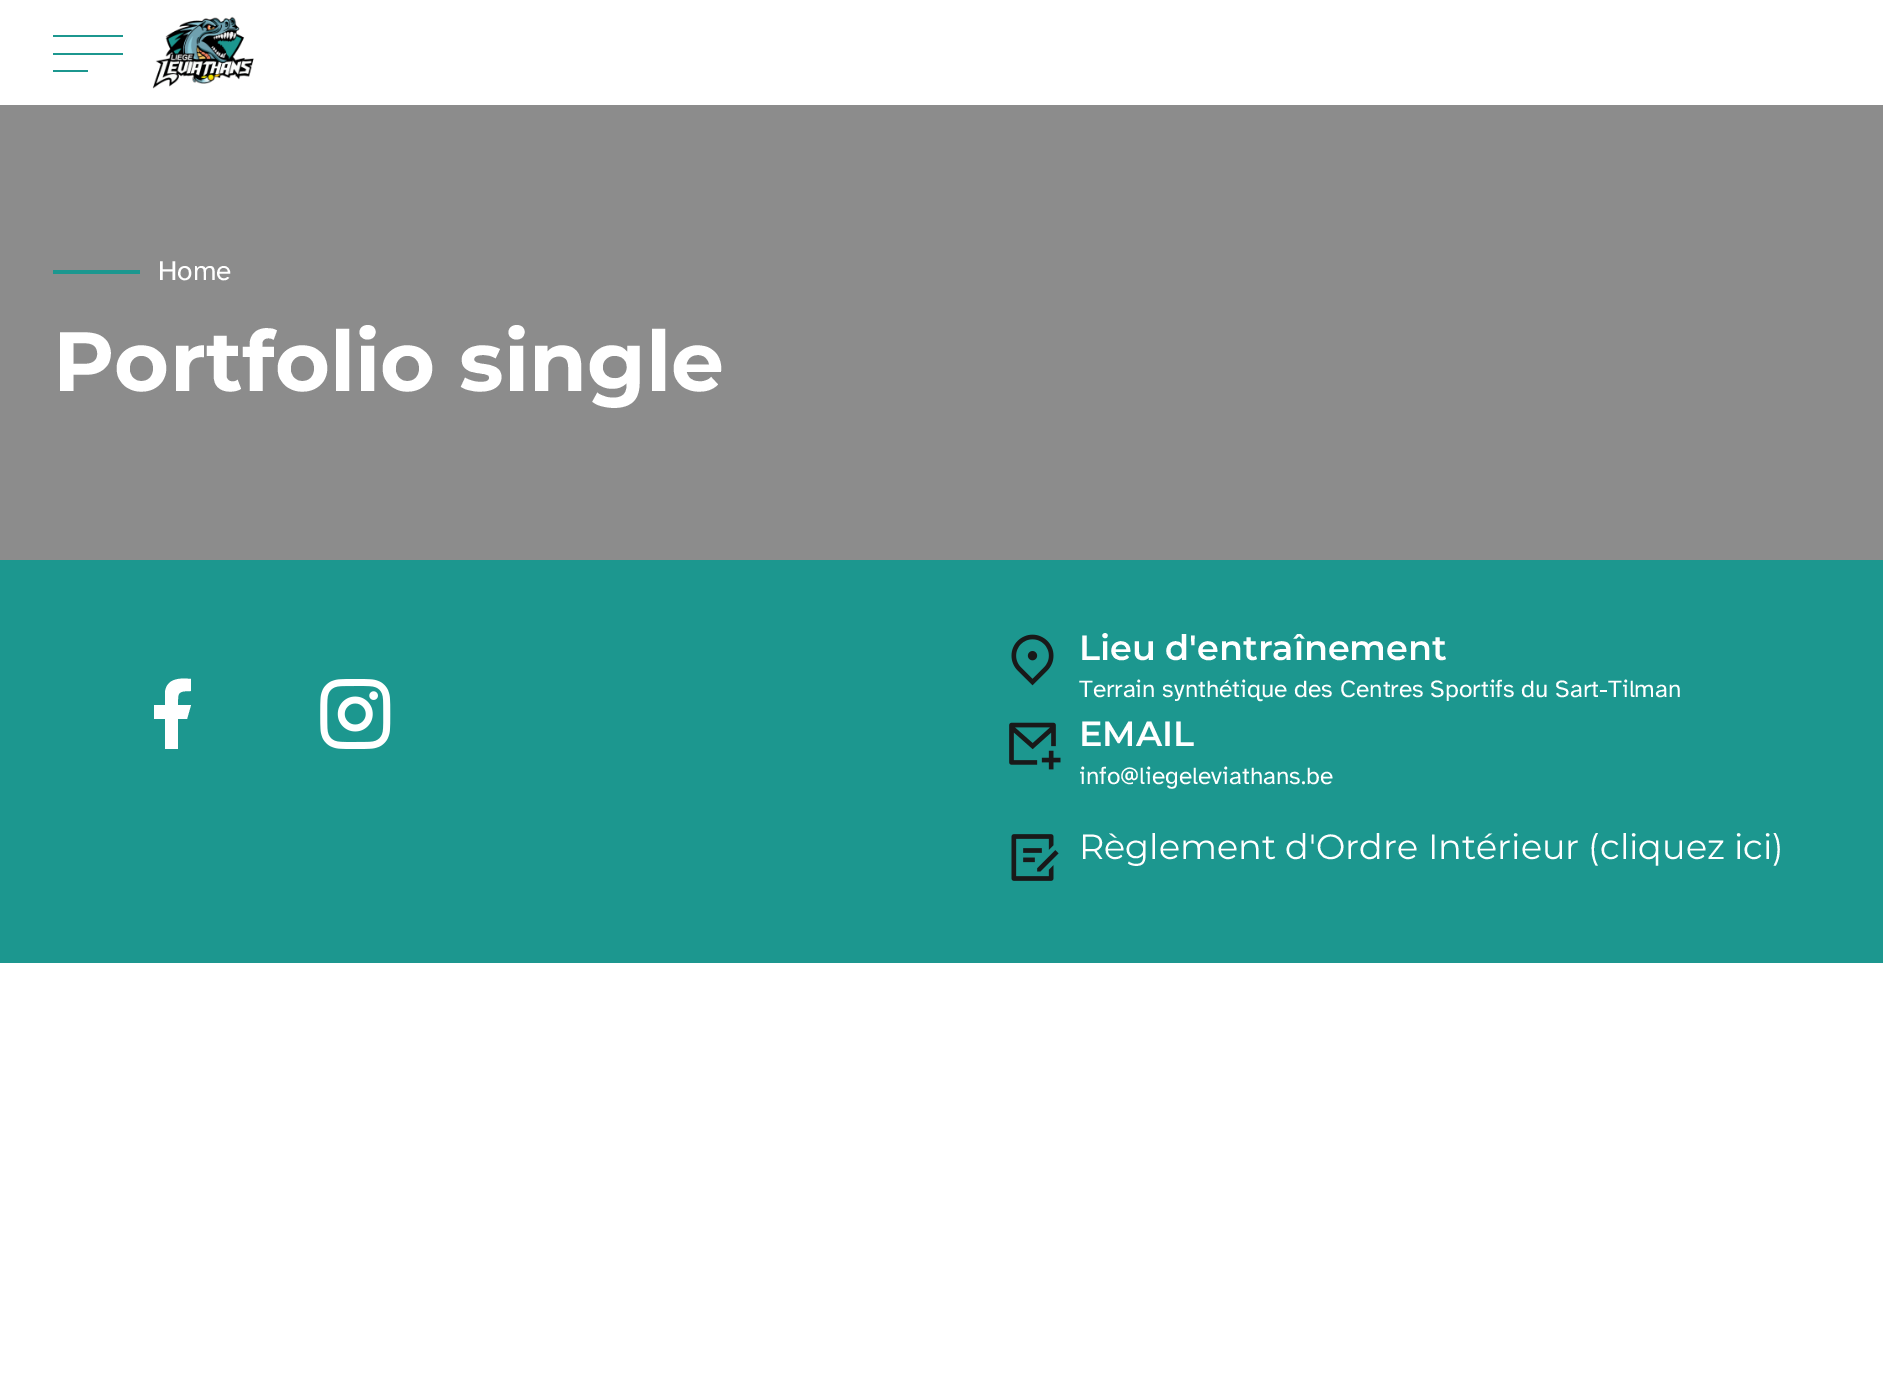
%!PS-Adobe-3.0
%%BoundingBox: 0 0 1883 1382
%%LanguageLevel: 3
%%Pages: 1
%%EndComments
%%BeginProlog
/m { moveto } bind def
/l { lineto } bind def
/c { curveto } bind def
/h { closepath } bind def
/f { fill } bind def
/fn { [ exch dup neg 0 0 3 -1 roll 0 0 ] selectfont } def
/tx { moveto show } def
/bx { rectfill } def
/im { 5 dict begin { /h /w /y /x /name } { exch def } forall
  gsave x y translate w h scale
  w h 8 [w 0 0 h 0 0] name (r) file false 3 colorimage grestore end } def
%%EndProlog
%%BeginSetup
<< /PageSize [1883 1382] >> setpagedevice
%%EndSetup
%%Page: 1 1
0 1382 translate 1 -1 scale
4 setmiterlimit
1 setgray
0 0 1883 1382 bx
0.11 0.592 0.561 setrgbcolor
53 35 70 2 bx
53 53 70 2 bx
53 70 35 2 bx
(image0.raw) 152 16 102 73 im
0.549 setgray
0 105 1883 455 bx
0.11 0.592 0.561 setrgbcolor
53 270 87 4 bx
/AtkinsonHyperlegible-Regular 28 fn
1 setgray
(Home) 158 280 tx
/Montserrat-Bold 84 fn
(Portfolio single) 53 391 tx
0.11 0.592 0.561 setrgbcolor
0 560 1883 403 bx
1 setgray
178 719 m 187 719 l 191 705 l 178 705 l 178 693 177 691 191 691 c 191 679 l 180 678 167 678 165 692 c 165 705 l 154 705 l 154 719 l 165 719 l 165 749 l 178 749 l h f
(image1.raw) 320 679 71 70 im
(image2.raw) 1011 634 43 52 im
/Montserrat-SemiBold 35 fn
(Lieu d'entraînement) 1079 660 tx
/AtkinsonHyperlegible-Regular 24.5 fn
(Terrain synthétique des Centres Sportifs du Sart-Tilman) 1079 697 tx
(image3.raw) 1009 722 52 48 im
/Montserrat-SemiBold 35 fn
(EMAIL) 1079 746 tx
/AtkinsonHyperlegible-Regular 24.5 fn
(info@liegeleviathans.be) 1079 784 tx
(image4.raw) 1011 834 48 47 im
/Montserrat-Regular 35 fn
(Règlement d'Ordre Intérieur \(cliquez ici\)) 1079 859 tx
showpage
%%EOF
